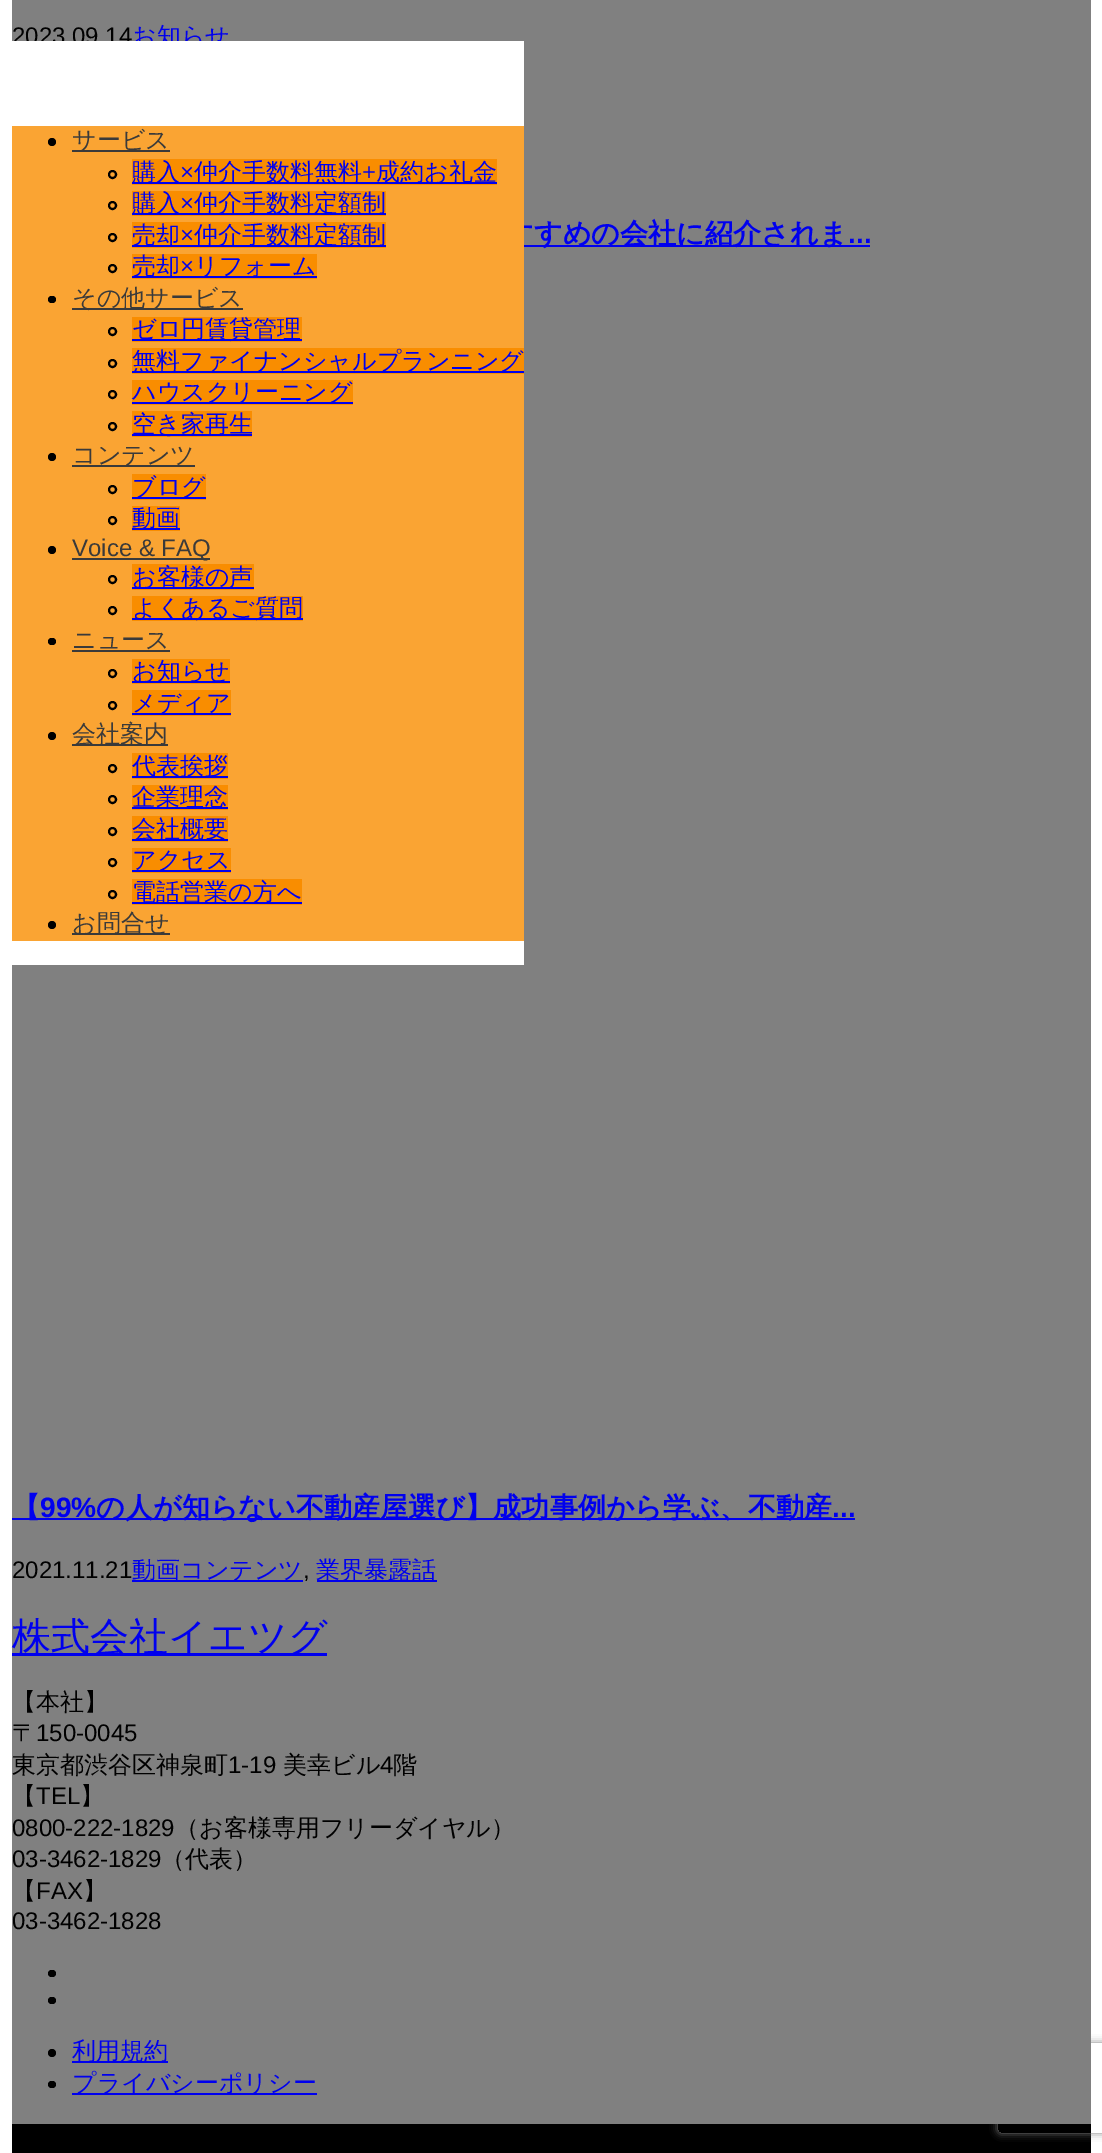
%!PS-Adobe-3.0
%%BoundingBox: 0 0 1102 2153
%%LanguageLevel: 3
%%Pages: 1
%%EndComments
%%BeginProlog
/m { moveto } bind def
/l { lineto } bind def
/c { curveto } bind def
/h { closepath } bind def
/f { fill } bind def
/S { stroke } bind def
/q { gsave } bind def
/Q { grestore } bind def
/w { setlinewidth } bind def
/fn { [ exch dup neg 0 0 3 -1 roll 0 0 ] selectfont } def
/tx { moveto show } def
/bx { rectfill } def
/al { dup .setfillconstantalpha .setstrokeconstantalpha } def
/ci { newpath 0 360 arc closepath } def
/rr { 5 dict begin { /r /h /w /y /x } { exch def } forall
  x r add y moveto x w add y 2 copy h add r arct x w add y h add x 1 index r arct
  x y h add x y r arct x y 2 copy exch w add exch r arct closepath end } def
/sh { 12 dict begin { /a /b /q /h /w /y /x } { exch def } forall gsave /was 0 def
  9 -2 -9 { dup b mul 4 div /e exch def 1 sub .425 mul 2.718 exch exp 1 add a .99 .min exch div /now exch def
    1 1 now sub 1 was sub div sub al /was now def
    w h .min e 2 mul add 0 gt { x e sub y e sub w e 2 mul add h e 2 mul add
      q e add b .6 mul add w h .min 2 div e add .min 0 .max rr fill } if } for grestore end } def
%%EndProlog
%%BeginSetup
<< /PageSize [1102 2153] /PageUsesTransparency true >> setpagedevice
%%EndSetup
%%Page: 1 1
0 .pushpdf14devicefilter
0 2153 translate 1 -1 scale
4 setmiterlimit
1 setgray
0 0 1102 2153 bx
0.502 setgray
12 0 1079 2124 bx
/LiberationSans-Regular 24 fn
0 setgray
(2023.09.14) 12 44 tx
/WenQuanYiZenHei-Medium 24 fn
0 0 0.933 setrgbcolor
(お知らせ) 132 44 tx
524 245 346 2 bx
/WenQuanYiZenHei-Bold 28.1 fn
(すすめの会社に紹介されま) 505 243 tx
/LiberationSans-Bold 28.1 fn
(...) 848 243 tx
12 1518 843 2 bx
/WenQuanYiZenHei-Bold 28.1 fn
(【) 12 1517 tx
/LiberationSans-Bold 28.1 fn
(99%) 40 1517 tx
/WenQuanYiZenHei-Bold 28.1 fn
(の人が知らない不動産屋選び】成功事例から学ぶ、不動産) 96 1517 tx
/LiberationSans-Bold 28.1 fn
(...) 832 1517 tx
/LiberationSans-Regular 24 fn
0 setgray
(2021.11.21) 12 1578 tx
0 0 0.933 setrgbcolor
132 1580 171 2 bx
/WenQuanYiZenHei-Medium 24 fn
(動画コンテンツ) 132 1578 tx
/LiberationSans-Regular 24 fn
0 setgray
(,) 303 1578 tx
0 0 0.933 setrgbcolor
317 1580 120 2 bx
/WenQuanYiZenHei-Medium 24 fn
(業界暴露話) 316 1578 tx
12 1653 315 3 bx
/WenQuanYiZenHei-Medium 39 fn
(株式会社イエツグ) 12 1650 tx
/WenQuanYiZenHei-Medium 24 fn
0 setgray
(【本社】) 12 1710 tx
(〒) 12 1741 tx
/LiberationSans-Regular 24 fn
(150-0045) 36 1741 tx
/WenQuanYiZenHei-Medium 24 fn
(東京都渋谷区神泉町) 12 1773 tx
/LiberationSans-Regular 24 fn
(1-19) 228 1773 tx
/WenQuanYiZenHei-Medium 24 fn
(美幸ビル) 283 1773 tx
/LiberationSans-Regular 24 fn
(4) 380 1773 tx
/WenQuanYiZenHei-Medium 24 fn
(階) 393 1773 tx
(【) 12 1804 tx
/LiberationSans-Regular 24 fn
(TEL) 36 1804 tx
/WenQuanYiZenHei-Medium 24 fn
(】) 80 1804 tx
/LiberationSans-Regular 24 fn
(0800-222-1829) 12 1836 tx
/WenQuanYiZenHei-Medium 24 fn
(（お客様専用フリーダイヤル）) 175 1836 tx
/LiberationSans-Regular 24 fn
(03-3462-1829) 12 1867 tx
/WenQuanYiZenHei-Medium 24 fn
(（代表）) 161 1867 tx
(【) 12 1899 tx
/LiberationSans-Regular 24 fn
(FAX) 36 1899 tx
/WenQuanYiZenHei-Medium 24 fn
(】) 83 1899 tx
/LiberationSans-Regular 24 fn
(03-3462-1828) 12 1929 tx
48 1970 8 7 3.5 rr f
48 1997 8 7 3.5 rr f
52 2053 4 ci f
0 0 0.933 setrgbcolor
72 2061 96 2 bx
/WenQuanYiZenHei-Medium 24 fn
(利用規約) 72 2059 tx
0 setgray
48 2081 8 7 3.5 rr f
0 0 0.933 setrgbcolor
72 2093 245 2 bx
(プライバシーポリシー) 72 2091 tx
0 setgray
12 2124 1079 29 bx
1 setgray
12 41 512 924 bx
0.98 0.643 0.2 setrgbcolor
12 126 512 815 bx
0 setgray
52 142 4 ci f
0.227 setgray
72 150 98 2 bx
(サービス) 72 148 tx
0 setgray
2 w
112.5 174.5 3.5 ci S
0.976 0.553 0 setrgbcolor
132 159 365 26 bx
0 0 0.933 setrgbcolor
132 182 365 2 bx
(購入) 132 180 tx
/LiberationSans-Regular 24 fn
(×) 180 180 tx
/WenQuanYiZenHei-Medium 24 fn
(仲介手数料無料) 194 180 tx
/LiberationSans-Regular 24 fn
(+) 362 180 tx
/WenQuanYiZenHei-Medium 24 fn
(成約お礼金) 376 180 tx
0 setgray
112.5 205.5 3.5 ci S
0.976 0.553 0 setrgbcolor
132 191 254 25 bx
0 0 0.933 setrgbcolor
132 213 254 2 bx
(購入) 132 211 tx
/LiberationSans-Regular 24 fn
(×) 180 211 tx
/WenQuanYiZenHei-Medium 24 fn
(仲介手数料定額制) 194 211 tx
0 setgray
112.5 237.5 3.5 ci S
0.976 0.553 0 setrgbcolor
132 222 254 26 bx
0 0 0.933 setrgbcolor
132 245 254 2 bx
(売却) 132 243 tx
/LiberationSans-Regular 24 fn
(×) 180 243 tx
/WenQuanYiZenHei-Medium 24 fn
(仲介手数料定額制) 194 243 tx
0 setgray
112.5 268.5 3.5 ci S
0.976 0.553 0 setrgbcolor
132 254 185 25 bx
0 0 0.933 setrgbcolor
132 276 185 2 bx
(売却) 132 274 tx
/LiberationSans-Regular 24 fn
(×) 180 274 tx
/WenQuanYiZenHei-Medium 24 fn
(リフォーム) 194 274 tx
0 setgray
48 296 8 7 3.5 rr f
0.227 setgray
72 308 171 2 bx
(その他サービス) 72 306 tx
0 setgray
112.5 331.5 3.5 ci S
0.976 0.553 0 setrgbcolor
132 317 170 25 bx
0 0 0.933 setrgbcolor
132 339 170 2 bx
(ゼロ円賃貸管理) 132 337 tx
0 setgray
112.5 363.5 3.5 ci S
0.976 0.553 0 setrgbcolor
132 348 392 26 bx
0 0 0.933 setrgbcolor
132 371 392 2 bx
(無料ファイナンシャルプランニング) 132 369 tx
0 setgray
112.5 394.5 3.5 ci S
0.976 0.553 0 setrgbcolor
132 380 221 25 bx
0 0 0.933 setrgbcolor
132 402 221 2 bx
(ハウスクリーニング) 132 400 tx
0 setgray
112.5 426.5 3.5 ci S
0.976 0.553 0 setrgbcolor
132 411 120 26 bx
0 0 0.933 setrgbcolor
132 434 120 2 bx
(空き家再生) 132 432 tx
0 setgray
52 457 4 ci f
0.227 setgray
72 465 123 2 bx
(コンテンツ) 72 463 tx
0 setgray
112.5 489.5 3.5 ci S
0.976 0.553 0 setrgbcolor
132 474 74 26 bx
0 0 0.933 setrgbcolor
132 497 74 2 bx
(ブログ) 132 495 tx
0 setgray
112.5 520.5 3.5 ci S
0.976 0.553 0 setrgbcolor
132 506 48 25 bx
0 0 0.933 setrgbcolor
132 528 48 2 bx
(動画) 132 526 tx
0 setgray
52 550 4 ci f
0.227 setgray
72 558 138 2 bx
/LiberationSans-Regular 24 fn
(Voice & FAQ) 72 556 tx
0 setgray
112.5 579.5 3.5 ci S
0.976 0.553 0 setrgbcolor
132 564 122 26 bx
0 0 0.933 setrgbcolor
132 587 122 2 bx
/WenQuanYiZenHei-Medium 24 fn
(お客様の声) 132 585 tx
0 setgray
112.5 610.5 3.5 ci S
0.976 0.553 0 setrgbcolor
132 596 171 25 bx
0 0 0.933 setrgbcolor
132 618 171 2 bx
(よくあるご質問) 132 616 tx
0 setgray
48 638 8 7 3.5 rr f
0.227 setgray
(ニュース) 72 648 tx
72 650 98 2 bx
0 setgray
112.5 673.5 3.5 ci S
0.976 0.553 0 setrgbcolor
132 659 98 25 bx
0 0 0.933 setrgbcolor
132 681 98 2 bx
(お知らせ) 132 679 tx
0 setgray
112.5 705.5 3.5 ci S
0.976 0.553 0 setrgbcolor
132 690 99 26 bx
0 0 0.933 setrgbcolor
132 713 99 2 bx
(メディア) 132 711 tx
0 setgray
52 736 4 ci f
0.227 setgray
72 744 96 2 bx
(会社案内) 72 742 tx
0 setgray
112.5 768.5 3.5 ci S
0.976 0.553 0 setrgbcolor
132 753 96 26 bx
0 0 0.933 setrgbcolor
132 776 96 2 bx
(代表挨拶) 132 774 tx
0 setgray
112.5 799.5 3.5 ci S
0.976 0.553 0 setrgbcolor
132 785 96 25 bx
0 0 0.933 setrgbcolor
132 807 96 2 bx
(企業理念) 132 805 tx
0 setgray
112.5 831.5 3.5 ci S
0.976 0.553 0 setrgbcolor
132 816 96 26 bx
0 0 0.933 setrgbcolor
132 839 96 2 bx
(会社概要) 132 837 tx
0 setgray
112.5 862.5 3.5 ci S
0.976 0.553 0 setrgbcolor
132 848 99 25 bx
0 0 0.933 setrgbcolor
132 870 99 2 bx
(アクセス) 132 868 tx
0 setgray
112.5 894.5 3.5 ci S
0.976 0.553 0 setrgbcolor
132 879 170 26 bx
0 0 0.933 setrgbcolor
132 902 170 2 bx
(電話営業の方へ) 132 900 tx
0 setgray
52 925 4 ci f
0.227 setgray
72 933 98 2 bx
(お問合せ) 72 931 tx
q
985 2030 m 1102 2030 l 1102 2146 l 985 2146 l h 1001 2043 m 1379 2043 l 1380.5 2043 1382 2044.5 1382 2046 c 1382 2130 l 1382 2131.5 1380.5 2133 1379 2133 c 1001 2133 l 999.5 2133 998 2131.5 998 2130 c 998 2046 l 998 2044.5 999.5 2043 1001 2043 c h eoclip newpath
0.502 setgray
998 2043 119 90 3 4 1 sh
Q
.poppdf14devicefilter showpage
%%EOF
